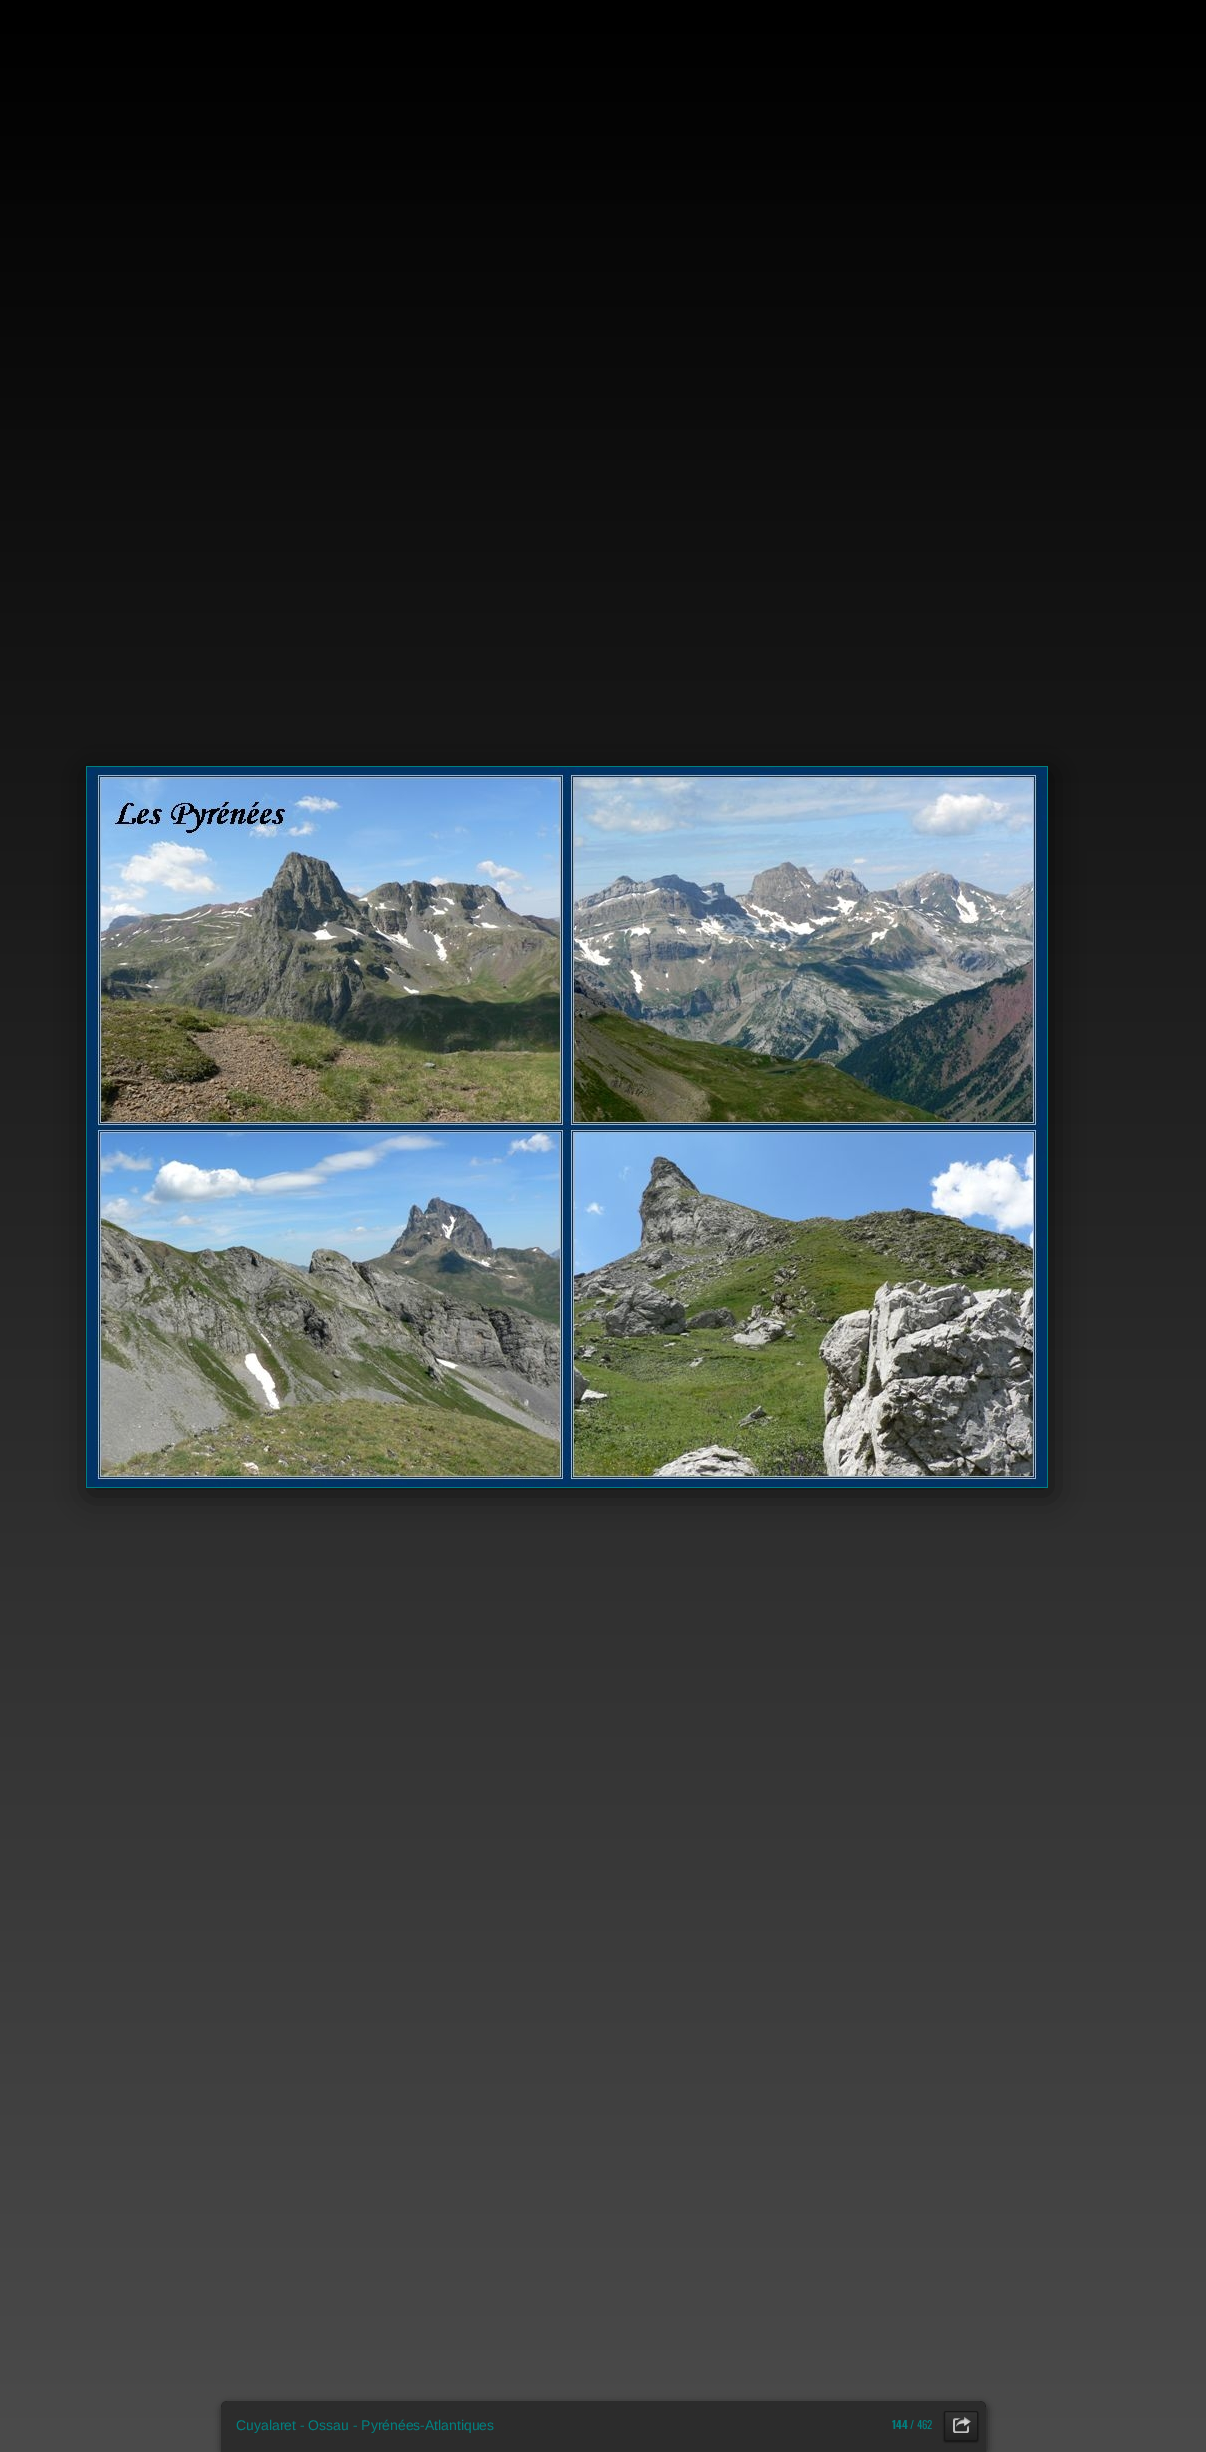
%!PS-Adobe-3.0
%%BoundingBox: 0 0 1206 2452
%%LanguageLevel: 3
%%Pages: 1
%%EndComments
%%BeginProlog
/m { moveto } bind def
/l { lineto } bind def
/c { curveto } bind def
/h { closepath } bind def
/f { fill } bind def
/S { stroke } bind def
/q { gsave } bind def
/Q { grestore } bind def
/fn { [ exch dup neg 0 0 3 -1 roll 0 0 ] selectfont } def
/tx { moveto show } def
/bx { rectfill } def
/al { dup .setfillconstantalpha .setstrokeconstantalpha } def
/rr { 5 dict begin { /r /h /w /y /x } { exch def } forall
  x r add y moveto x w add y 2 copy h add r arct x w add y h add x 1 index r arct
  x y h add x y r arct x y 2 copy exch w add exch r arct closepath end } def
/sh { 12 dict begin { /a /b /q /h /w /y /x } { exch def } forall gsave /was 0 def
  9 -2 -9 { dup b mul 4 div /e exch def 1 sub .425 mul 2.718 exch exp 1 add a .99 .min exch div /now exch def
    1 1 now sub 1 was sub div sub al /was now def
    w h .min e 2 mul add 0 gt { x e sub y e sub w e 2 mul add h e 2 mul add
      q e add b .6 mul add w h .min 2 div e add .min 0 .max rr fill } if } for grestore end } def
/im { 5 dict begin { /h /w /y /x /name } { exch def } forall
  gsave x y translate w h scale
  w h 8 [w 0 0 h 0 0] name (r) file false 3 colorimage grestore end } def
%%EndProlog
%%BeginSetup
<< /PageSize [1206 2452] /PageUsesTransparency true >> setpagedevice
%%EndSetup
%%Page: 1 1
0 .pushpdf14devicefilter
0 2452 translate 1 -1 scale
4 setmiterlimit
1 setgray
0 0 1206 2452 bx
q 0 0 m 1206 0 l 1206 2452 l 0 2452 l h clip newpath
<< /ShadingType 2 /ColorSpace /DeviceRGB /Coords [603 0 603 2452] /Extend [true true] /Function << /FunctionType 2 /Domain [0 1] /C0 [0 0 0] /C1 [0.294 0.294 0.294] /N 1 >> >> shfill Q
0 setgray
89 772 962 722 0 16 0.6 sh
0 0.502 0.502 setrgbcolor
86 766 962 722 bx
(image0.raw) 87 767 960 720 im
q
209 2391 m 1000 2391 l 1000 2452 l 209 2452 l h 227 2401 m 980 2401 l 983.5 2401 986 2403.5 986 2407 c 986 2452 l 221 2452 l 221 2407 l 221 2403.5 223.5 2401 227 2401 c h eoclip newpath
0 setgray
222 2404 765 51 6 4 0.6 sh
Q
0.4 al
0 setgray
227 2401 m 980 2401 l 983.5 2401 986 2403.5 986 2407 c 986 2452 l 221 2452 l 221 2407 l 221 2403.5 223.5 2401 227 2401 c h f
/LiberationSans-Regular 14 fn
1 al
0 0.502 0.502 setrgbcolor
(Cuyalaret - Ossau - Pyrénées-Atlantiques) 236 2430 tx
/Oswald-Bold 11 fn
(144) 892 2429 tx
/Oswald-Regular 11 fn
(/ 462) 910 2429 tx
0 setgray
944 2412 34 30 2 1 0.6 sh
q 945 2412 32 28 1 rr clip newpath
<< /ShadingType 2 /ColorSpace /DeviceRGB /Coords [961 2412 961 2440] /Extend [true true] /Function << /FunctionType 2 /Domain [0 1] /C0 [0.2 0.2 0.2] /C1 [0.133 0.133 0.133] /N 1 >> >> shfill Q
0.094 setgray
944.5 2411.5 33 29 1.5 rr S
(image1.raw) 953 2416 18 17 im
.poppdf14devicefilter showpage
%%EOF
